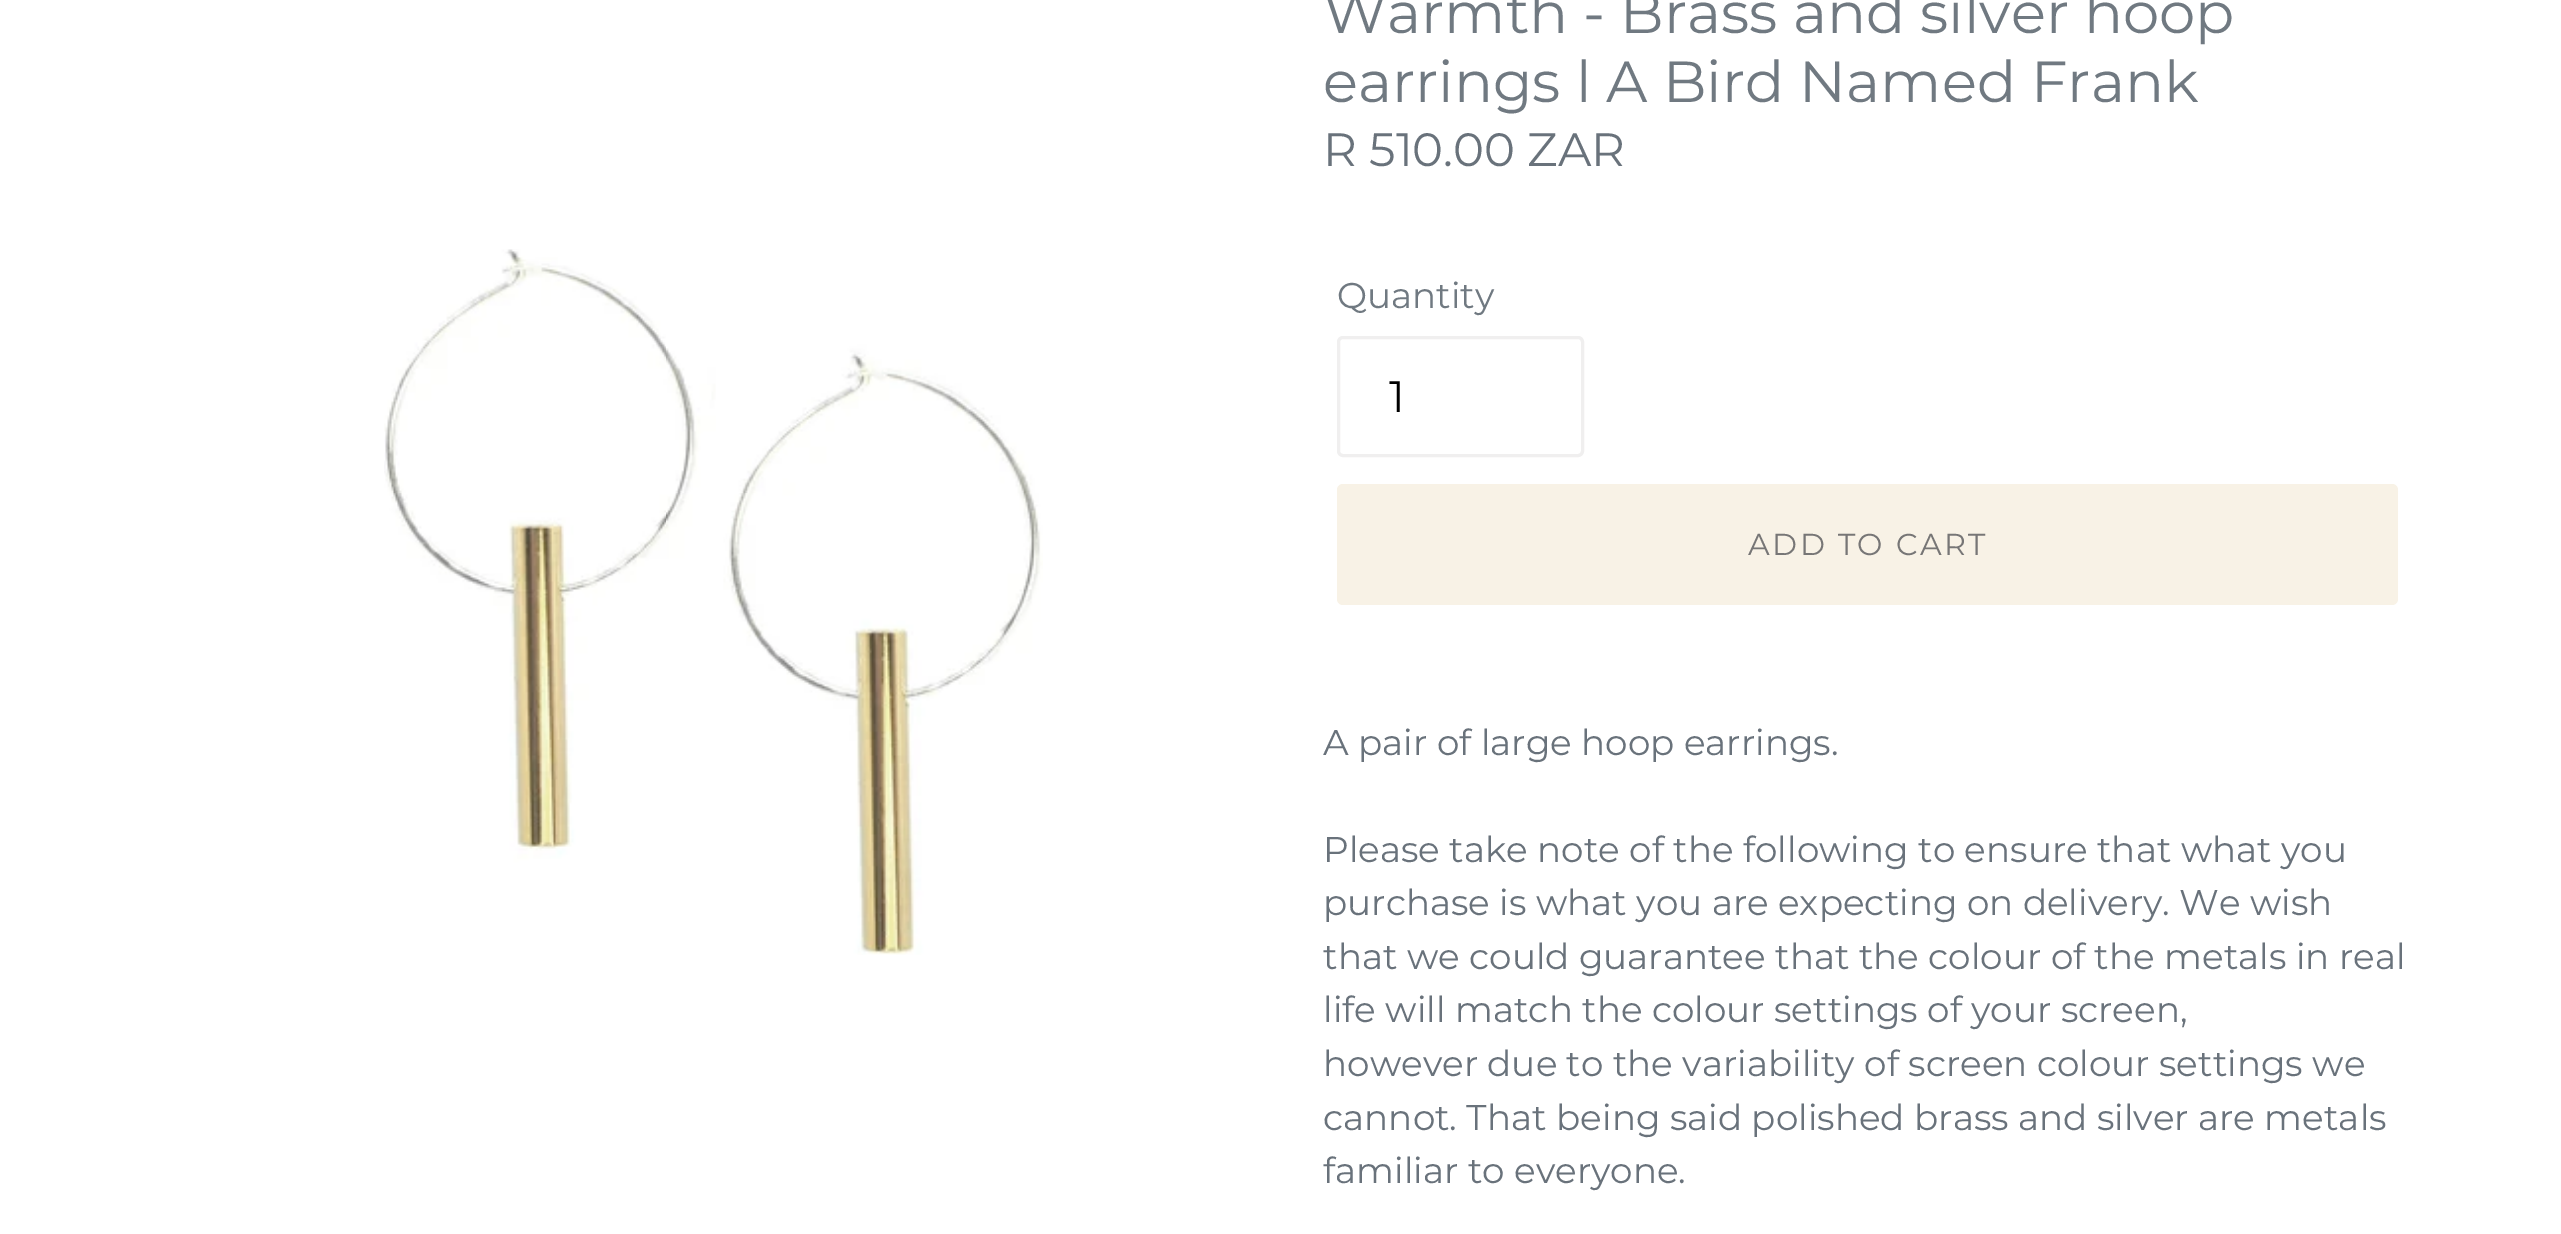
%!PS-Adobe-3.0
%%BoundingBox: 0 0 2561 1234
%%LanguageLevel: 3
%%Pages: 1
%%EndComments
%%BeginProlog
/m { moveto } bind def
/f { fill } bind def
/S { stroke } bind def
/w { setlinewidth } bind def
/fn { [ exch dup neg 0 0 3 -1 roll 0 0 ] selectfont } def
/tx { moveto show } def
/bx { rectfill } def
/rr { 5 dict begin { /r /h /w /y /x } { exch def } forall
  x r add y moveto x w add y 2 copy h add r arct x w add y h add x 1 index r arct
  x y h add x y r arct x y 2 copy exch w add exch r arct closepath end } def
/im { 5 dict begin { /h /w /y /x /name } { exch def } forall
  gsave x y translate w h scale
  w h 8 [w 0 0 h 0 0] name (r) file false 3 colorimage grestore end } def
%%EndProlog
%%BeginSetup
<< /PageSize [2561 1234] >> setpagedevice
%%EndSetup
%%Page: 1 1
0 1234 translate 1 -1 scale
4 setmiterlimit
1 setgray
0 0 2561 1234 bx
(image0.raw) 384 249 659 706 im
/Montserrat-Thin 57.75 fn
0.439 0.475 0.506 setrgbcolor
(Warmth - Brass and silver hoop) 1323 33 tx
(earrings l A Bird Named Frank) 1323 102 tx
/Montserrat-Thin 46.75 fn
0.412 0.447 0.482 setrgbcolor
(R 510.00 ZAR) 1323 166 tx
/Montserrat-Thin 35.75 fn
0.439 0.475 0.506 setrgbcolor
(Quantity) 1337 308 tx
0.941 0.937 0.937 setrgbcolor
3 w
1338.5 337.5 244 118 4.5 rr S
/Montserrat-Thin 44 fn
0 setgray
(1) 1389 412 tx
0.973 0.949 0.902 setrgbcolor
1337 484 1061 121 6 rr f
/Montserrat-Thin 30.25 fn
0.467 0.463 0.463 setrgbcolor
1748 555 m 2.5 0 (ADD TO CART) ashow
/Montserrat-Thin 35.75 fn
0.412 0.447 0.482 setrgbcolor
(A pair of large hoop earrings.) 1323 755 tx
(Please take note of the following to ensure that what you) 1323 862 tx
(purchase is what you are expecting on delivery. We wish) 1323 915 tx
(that we could guarantee that the colour of the metals in real) 1323 969 tx
(life will match the colour settings of your screen,) 1323 1022 tx
(however due to the variability of screen colour settings we) 1323 1076 tx
(cannot. That being said polished brass and silver are metals) 1323 1130 tx
(familiar to everyone.) 1323 1183 tx
showpage
%%EOF
